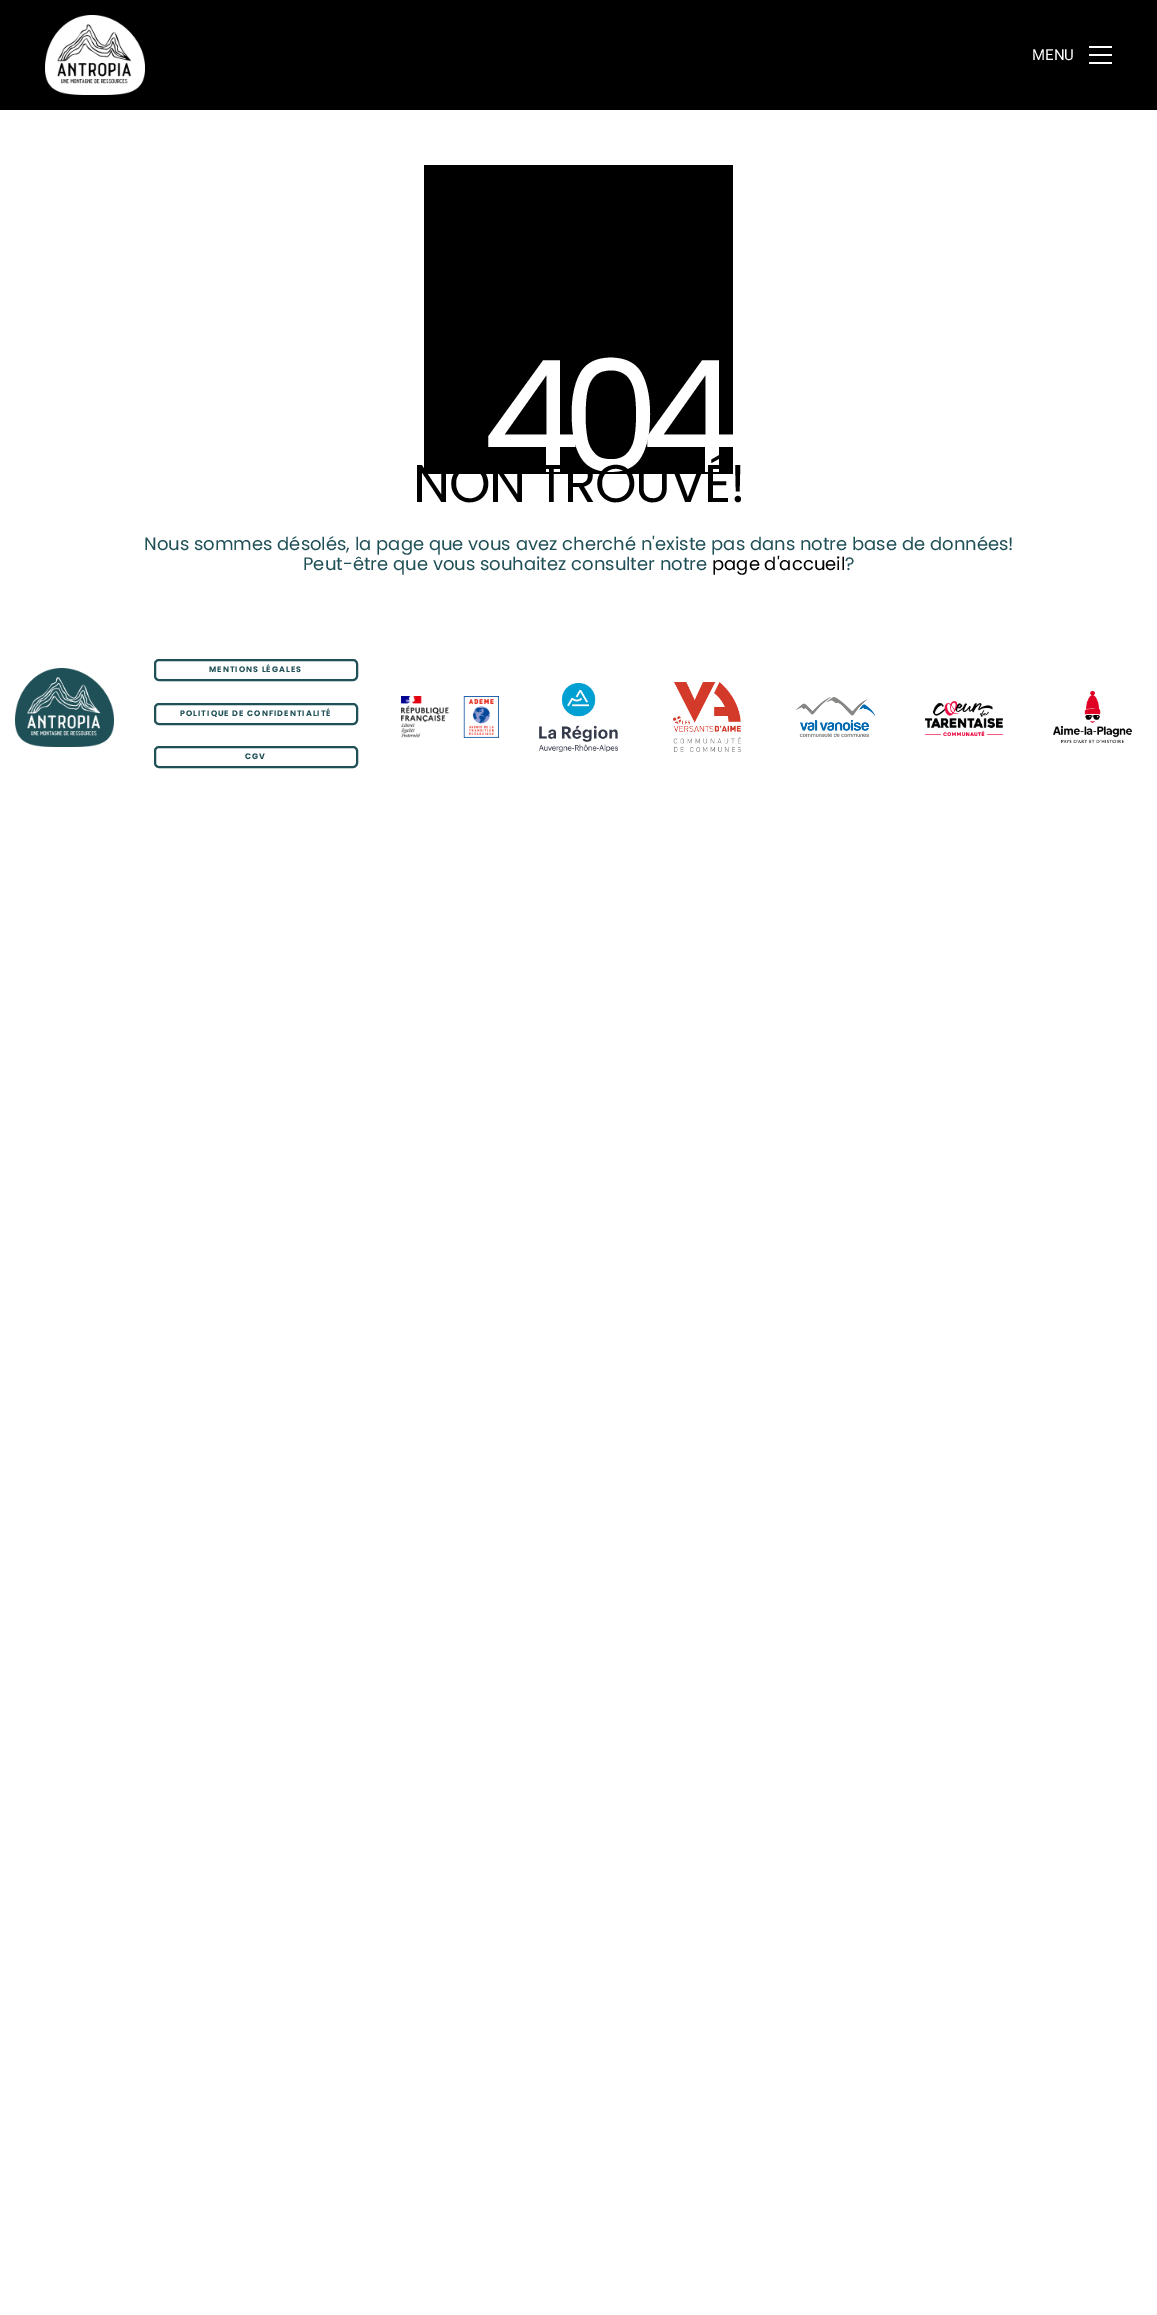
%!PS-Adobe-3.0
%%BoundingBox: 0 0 1157 2315
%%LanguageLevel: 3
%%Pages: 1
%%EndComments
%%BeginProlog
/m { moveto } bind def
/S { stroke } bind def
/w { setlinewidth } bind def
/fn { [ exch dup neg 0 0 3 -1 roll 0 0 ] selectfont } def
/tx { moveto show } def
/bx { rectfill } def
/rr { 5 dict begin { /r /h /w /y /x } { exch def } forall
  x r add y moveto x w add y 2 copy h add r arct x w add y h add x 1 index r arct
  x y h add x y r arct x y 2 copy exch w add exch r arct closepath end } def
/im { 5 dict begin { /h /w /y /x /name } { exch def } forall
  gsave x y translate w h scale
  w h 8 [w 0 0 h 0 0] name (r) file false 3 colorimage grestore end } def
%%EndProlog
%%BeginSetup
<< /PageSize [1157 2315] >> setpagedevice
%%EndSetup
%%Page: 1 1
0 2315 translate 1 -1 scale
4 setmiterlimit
1 setgray
0 0 1157 2315 bx
0 setgray
0 0 1157 110 bx
(image0.raw) 45 15 100 80 im
/Roboto-Regular 15 fn
1 setgray
(MENU) 1032 60 tx
1089 46 23 2 bx
1089 54 23 2 bx
1089 62 23 2 bx
0 setgray
424 165 309 309 bx
/Poppins-Regular 156 fn
1 setgray
482 472 m -30 0 (4 0 4) ashow
/Poppins-Regular 53 fn
0 setgray
413 502 m -1.5 0 (NON TROUVÉ!) ashow
/Poppins-Regular 18 fn
0.125 0.314 0.341 setrgbcolor
(Nous sommes désolés, la page que vous avez cherché n'existe pas dans notre base de données!) 144 550 tx
(Peut-être que vous souhaitez consulter notre) 303 570 tx
0 setgray
(page d'accueil) 712 570 tx
0.125 0.314 0.341 setrgbcolor
(?) 845 570 tx
(image1.raw) 15 668 99 79 im
2 w
155 660 202 20 4 rr S
/Poppins-Bold 8 fn
209 672 m 1 0 (MENTIONS LÉGALES) ashow
155 704 202 20 4 rr S
180 716 m 1 0 (POLITIQUE DE CONFIDENTIALITÉ) ashow
155 747 202 20 4 rr S
245 759 m 1 0 (CGV) ashow
(image2.raw) 401 696 98 42 im
(image3.raw) 539 683 79 69 im
(image4.raw) 673 682 68 70 im
(image5.raw) 796 697 79 40 im
(image6.raw) 925 701 78 35 im
(image7.raw) 1053 691 79 52 im
showpage
%%EOF
